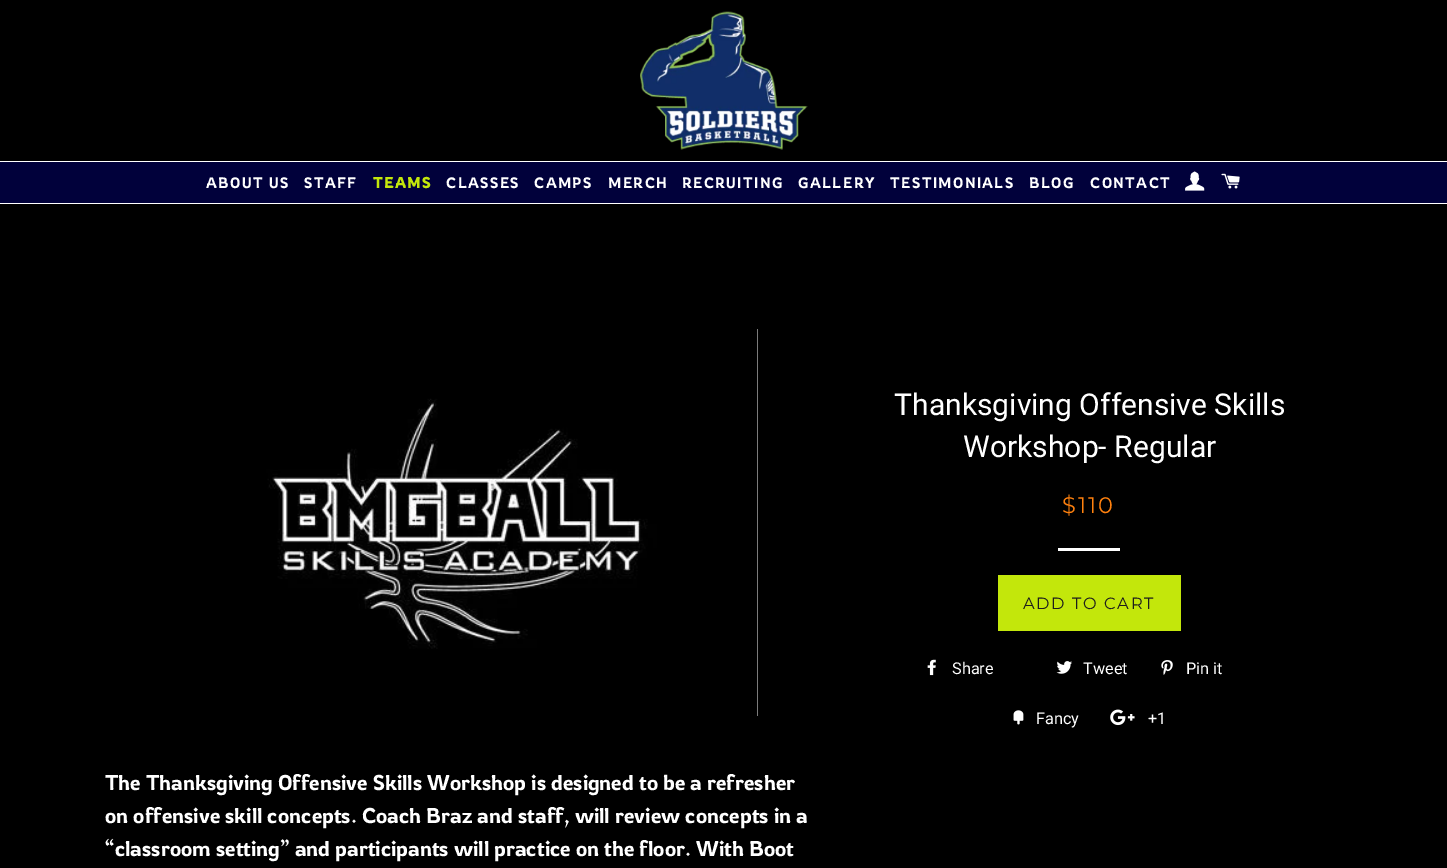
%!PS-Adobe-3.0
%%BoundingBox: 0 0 1447 868
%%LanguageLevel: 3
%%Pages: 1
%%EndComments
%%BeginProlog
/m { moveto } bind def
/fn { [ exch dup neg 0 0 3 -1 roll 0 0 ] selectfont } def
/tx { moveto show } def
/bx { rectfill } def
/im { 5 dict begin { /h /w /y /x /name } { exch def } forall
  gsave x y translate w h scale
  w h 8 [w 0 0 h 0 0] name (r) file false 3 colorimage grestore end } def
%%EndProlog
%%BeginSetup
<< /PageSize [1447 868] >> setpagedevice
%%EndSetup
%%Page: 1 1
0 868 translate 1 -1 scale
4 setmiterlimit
0 setgray
0 0 1447 868 bx
(image0.raw) 640 11 168 139 im
0.004 0.004 0.231 setrgbcolor
0 162 1447 41 bx
1 setgray
0 161 1447 1 bx
0 203 1447 1 bx
/Rowdies-Light 15 fn
206 188 m 1.5 0 (ABOUT US) ashow
304 188 m 1.5 0 (STAFF) ashow
/Rowdies-Bold 15 fn
0.765 0.906 0.043 setrgbcolor
373 188 m 1.5 0 (TEAMS) ashow
/Rowdies-Light 15 fn
1 setgray
446 188 m 1.5 0 (CLASSES) ashow
534 188 m 1.5 0 (CAMPS) ashow
608 188 m 1.5 0 (MERCH) ashow
682 188 m 1.5 0 (RECRUITING) ashow
798 188 m 1.5 0 (GALLERY) ashow
890 188 m 1.5 0 (TESTIMONIALS) ashow
1029 188 m 1.5 0 (BLOG) ashow
1090 188 m 1.5 0 (CONTACT) ashow
(image1.raw) 1185 171 20 20 im
(image2.raw) 1221 173 19 16 im
/Roboto-Regular 30.1 fn
(Thanksgiving Offensive Skills) 894 415 tx
(Workshop- Regular) 963 457 tx
/Montserrat-Thin 22.5 fn
1 0.506 0.055 setrgbcolor
1062 513 m 2 0 ($110) ashow
1 setgray
1058 548 62 3 bx
0.765 0.906 0.043 setrgbcolor
998 575 183 56 bx
/Montserrat-Thin 16.25 fn
0.11 0.114 0.114 setrgbcolor
1023 609 m 1.6 0 (ADD TO CART) ashow
(image3.raw) 927 659 9 17 im
/Roboto-Regular 16.25 fn
1 setgray
(Share) 952 674 tx
(image4.raw) 1056 661 16 13 im
(Tweet) 1083 674 tx
(image5.raw) 1161 660 12 15 im
(Pin it) 1186 674 tx
(image6.raw) 1013 710 11 15 im
(Fancy) 1036 724 tx
(image7.raw) 1110 709 25 17 im
(+1) 1148 724 tx
0.969 setgray
757 329 1 387 bx
(image8.raw) 158 329 600 387 im
/Rowdies-Light 21.25 fn
1 setgray
(The Thanksgiving Offensive Skills Workshop is designed to be a refresher) 105 790 tx
(on offensive skill concepts. Coach Braz and staff, will review concepts in a) 105 823 tx
(“classroom setting” and participants will practice on the floor. With Boot) 105 856 tx
showpage
%%EOF
